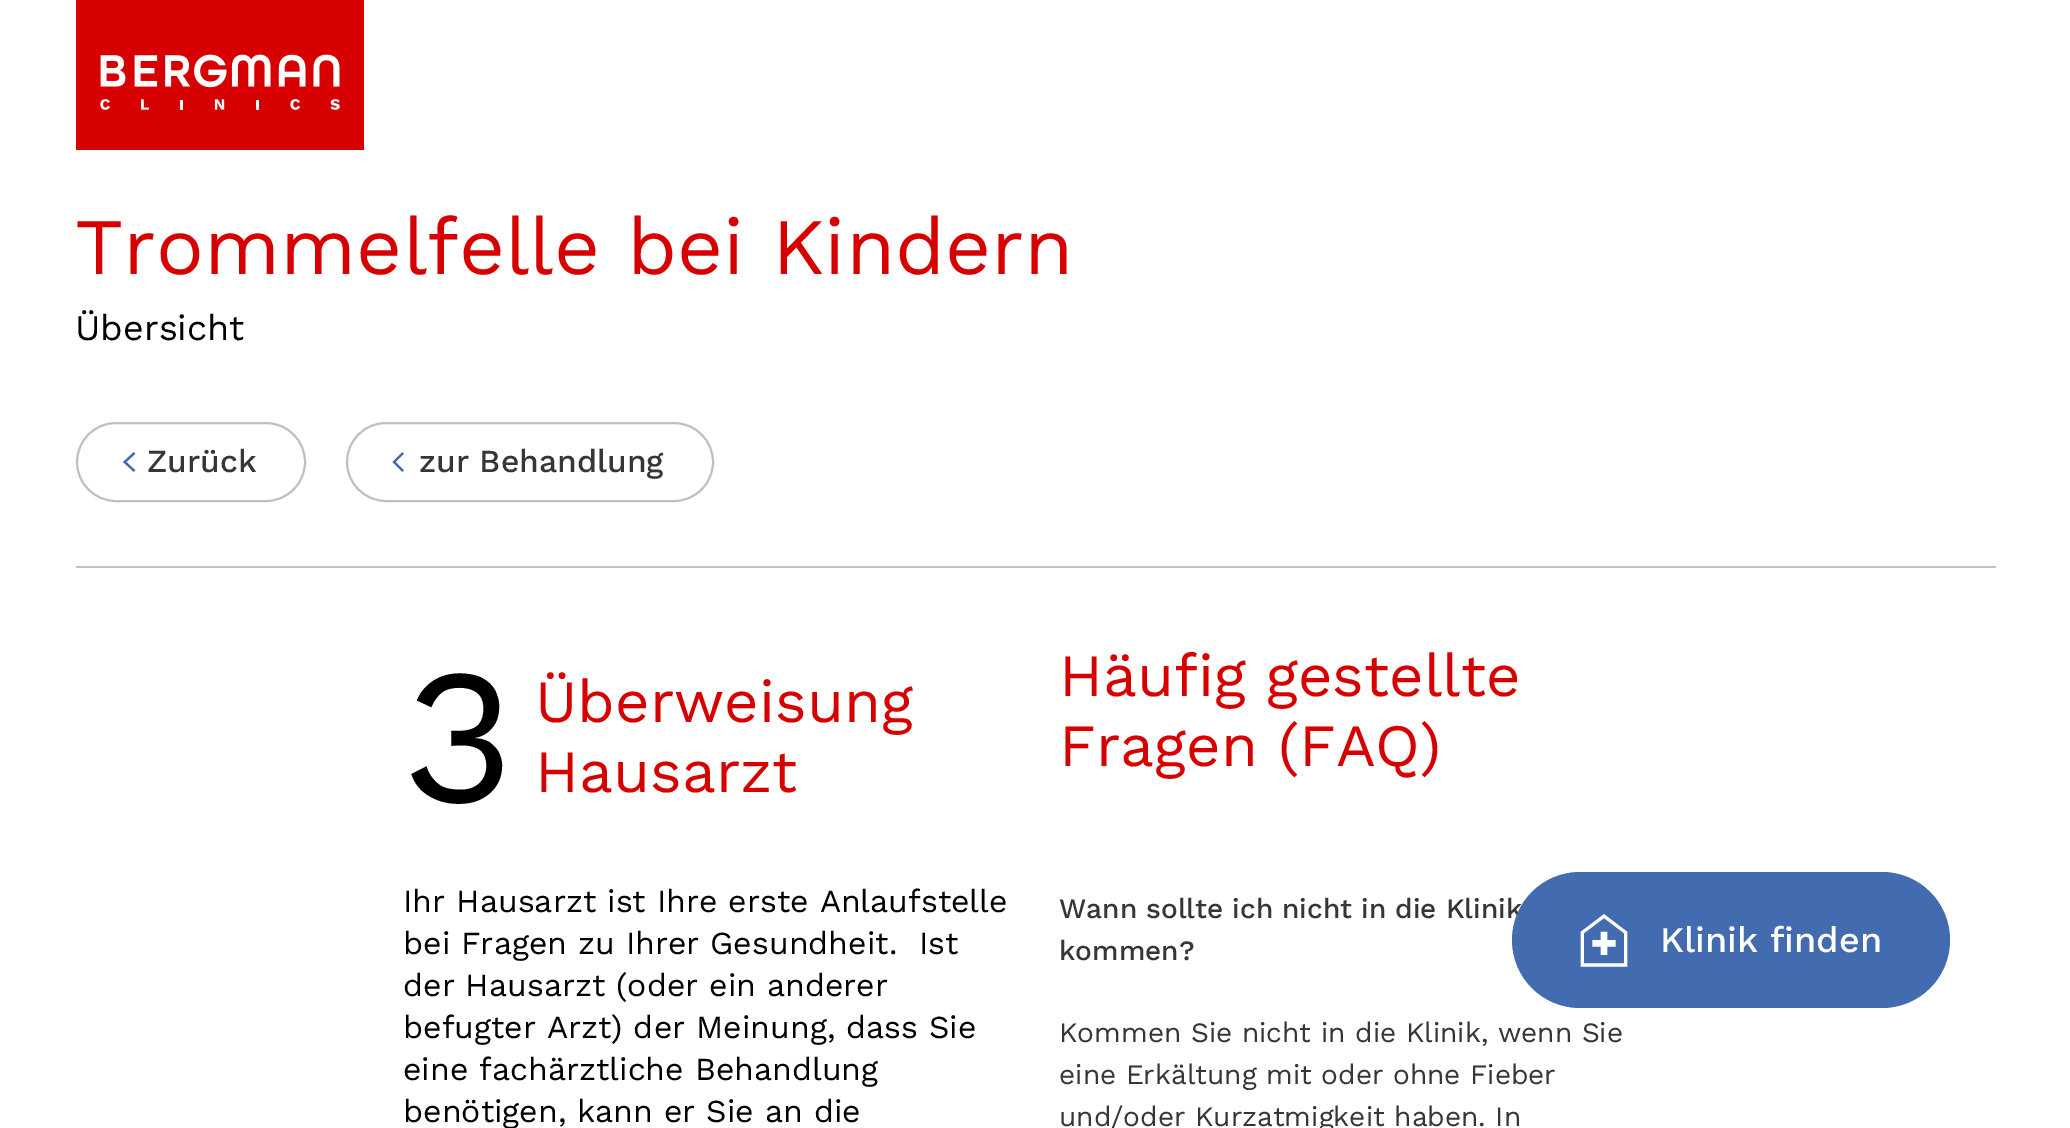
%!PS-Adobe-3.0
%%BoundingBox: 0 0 2070 1128
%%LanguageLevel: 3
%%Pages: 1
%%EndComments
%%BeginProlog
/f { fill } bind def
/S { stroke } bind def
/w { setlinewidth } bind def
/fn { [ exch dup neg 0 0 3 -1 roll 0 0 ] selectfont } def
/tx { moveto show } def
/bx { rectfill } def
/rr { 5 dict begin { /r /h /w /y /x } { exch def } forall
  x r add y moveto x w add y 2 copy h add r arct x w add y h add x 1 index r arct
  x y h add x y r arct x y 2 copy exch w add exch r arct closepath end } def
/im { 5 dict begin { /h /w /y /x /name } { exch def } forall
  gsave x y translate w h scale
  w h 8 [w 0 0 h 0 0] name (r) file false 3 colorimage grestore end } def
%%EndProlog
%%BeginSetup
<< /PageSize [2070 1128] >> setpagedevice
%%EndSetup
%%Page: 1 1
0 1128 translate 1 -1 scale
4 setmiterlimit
1 setgray
0 0 2070 1128 bx
(image0.raw) 76 0 288 150 im
/WorkSans-Regular 80 fn
0.843 0 0 setrgbcolor
(Trommelfelle bei Kindern) 75 274 tx
/WorkSans-Regular 36 fn
0 setgray
(Übersicht) 75 340 tx
0.753 setgray
2 w
77 423 228 78 39 rr S
(image1.raw) 123 452 13 20 im
/WorkSans-Medium 32 fn
0.212 setgray
(Zurück) 147 472 tx
0.753 setgray
347 423 366 78 39 rr S
(image2.raw) 392 452 12 20 im
0.212 setgray
(zur Behandlung) 419 472 tx
0.753 setgray
76 566 1920 2 bx
/WorkSans-Regular 192 fn
0 setgray
(3) 403 802 tx
/WorkSans-Regular 60 fn
0.843 0 0 setrgbcolor
(Überweisung) 535 722 tx
(Hausarzt) 535 792 tx
/WorkSans-Regular 32 fn
0 setgray
(Ihr Hausarzt ist Ihre erste Anlaufstelle) 403 912 tx
(bei Fragen zu Ihrer Gesundheit.  Ist) 403 954 tx
(der Hausarzt \(oder ein anderer) 403 996 tx
(befugter Arzt\) der Meinung, dass Sie) 403 1038 tx
(eine fachärztliche Behandlung) 403 1080 tx
(benötigen, kann er Sie an die) 403 1122 tx
/WorkSans-Regular 60 fn
0.843 0 0 setrgbcolor
(Häufig gestellte) 1059 696 tx
(Fragen \(FAQ\)) 1059 766 tx
/WorkSans-Medium 28 fn
0.212 setgray
(Wann sollte ich nicht in die Klinik) 1059 918 tx
(kommen?) 1059 960 tx
/WorkSans-Regular 28 fn
(Kommen Sie nicht in die Klinik, wenn Sie) 1059 1042 tx
(eine Erkältung mit oder ohne Fieber) 1059 1084 tx
(und/oder Kurzatmigkeit haben. In) 1059 1126 tx
0.259 0.424 0.686 setrgbcolor
1512 872 438 136 68 rr f
(image3.raw) 1580 914 48 53 im
/WorkSans-Medium 36 fn
1 setgray
(Klinik finden) 1660 952 tx
showpage
%%EOF
